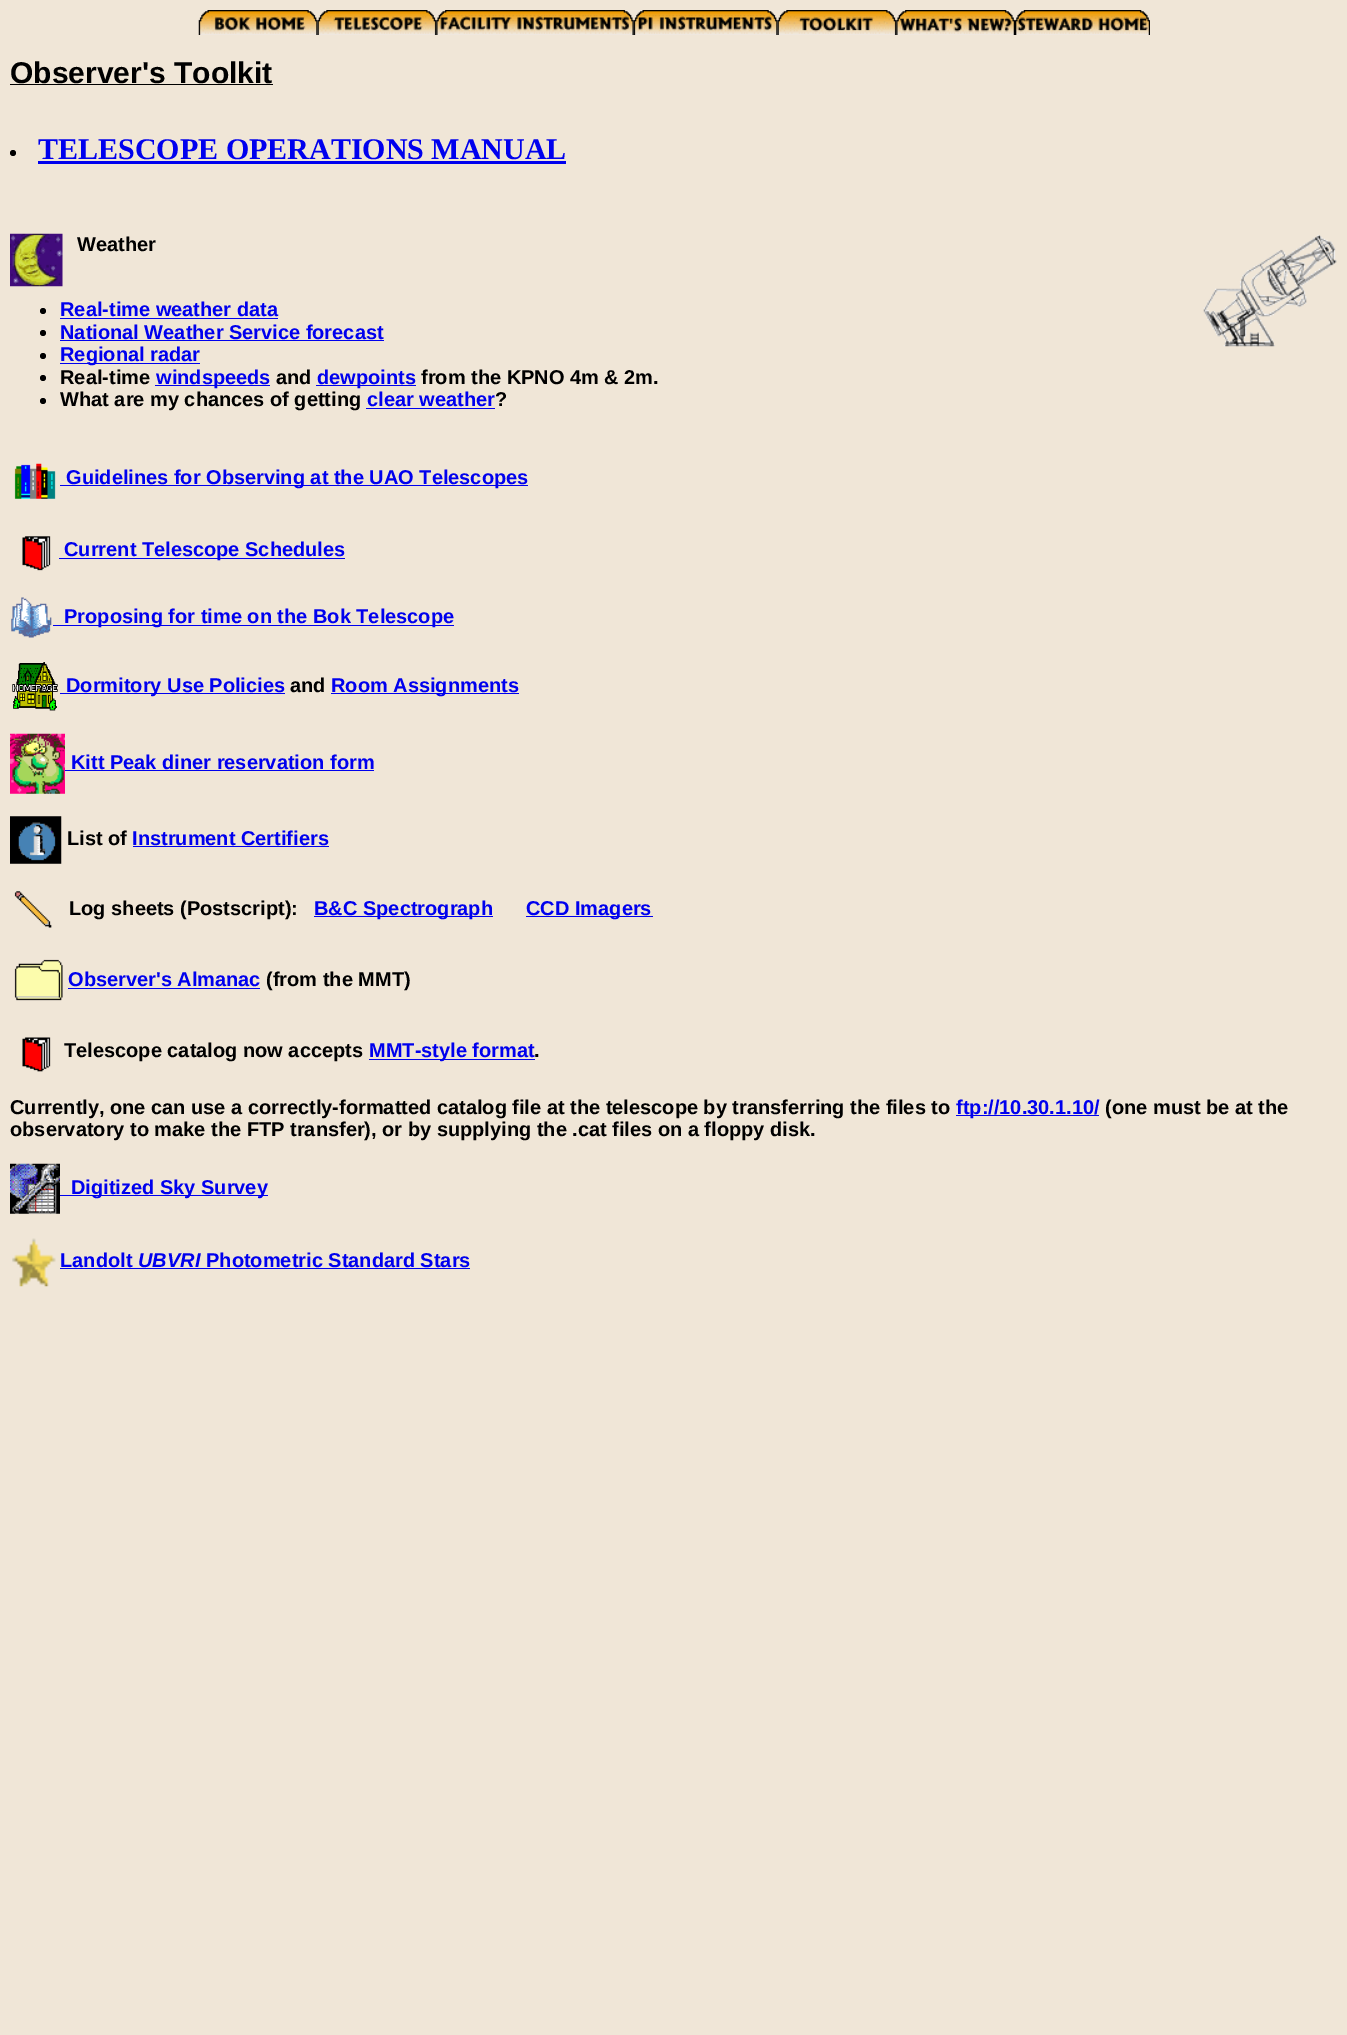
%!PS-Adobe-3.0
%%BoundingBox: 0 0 1347 2035
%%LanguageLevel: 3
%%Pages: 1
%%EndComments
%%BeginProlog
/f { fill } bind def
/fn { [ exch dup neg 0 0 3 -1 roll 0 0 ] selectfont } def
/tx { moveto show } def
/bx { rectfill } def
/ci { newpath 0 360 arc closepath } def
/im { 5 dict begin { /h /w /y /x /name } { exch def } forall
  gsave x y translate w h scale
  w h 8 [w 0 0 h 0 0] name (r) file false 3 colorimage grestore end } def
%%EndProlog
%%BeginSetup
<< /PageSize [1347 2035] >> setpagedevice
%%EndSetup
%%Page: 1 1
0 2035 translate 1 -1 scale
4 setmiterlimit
0.941 0.902 0.843 setrgbcolor
0 0 1347 2035 bx
(image0.raw) 198 10 120 25 im
(image1.raw) 317 10 120 25 im
(image2.raw) 436 10 198 25 im
(image3.raw) 633 10 145 25 im
(image4.raw) 777 10 120 25 im
(image5.raw) 896 10 119 25 im
(image6.raw) 1015 10 135 25 im
/LiberationSans-Bold 30 fn
0 setgray
(Observer's Toolkit) 10 83 tx
10 84 263 1 bx
13 153 3 ci f
/LiberationSerif-Bold 30 fn
0 0 0.933 setrgbcolor
(TELESCOPE OPERATIONS MANUAL) 38 159 tx
38 161 528 3 bx
(image7.raw) 10 233 53 54 im
/LiberationSans-Bold 20 fn
0 setgray
(Weather) 77 251 tx
(image8.raw) 1203 235 134 112 im
43 311 3 ci f
0 0 0.933 setrgbcolor
(Real-time weather data) 60 316 tx
60 318 218 1 bx
0 setgray
43 333 3 ci f
0 0 0.933 setrgbcolor
(National Weather Service forecast) 60 339 tx
60 340 324 1 bx
0 setgray
43 356 3 ci f
0 0 0.933 setrgbcolor
60 363 140 1 bx
(Regional radar) 60 361 tx
0 setgray
43 378 3 ci f
(Real-time) 60 384 tx
0 0 0.933 setrgbcolor
155 385 115 1 bx
(windspeeds) 156 384 tx
0 setgray
(and) 276 384 tx
0 0 0.933 setrgbcolor
316 385 100 1 bx
(dewpoints) 317 384 tx
0 setgray
(from the KPNO 4m & 2m.) 421 384 tx
43 401 3 ci f
(What are my chances of getting) 60 406 tx
0 0 0.933 setrgbcolor
(clear weather) 367 406 tx
366 408 129 1 bx
0 setgray
(?) 495 406 tx
(image9.raw) 14 463 42 36 im
0 0 0.933 setrgbcolor
60 485 468 1 bx
(Guidelines for Observing at the UAO Telescopes) 66 484 tx
(image10.raw) 22 536 29 35 im
59 558 286 1 bx
(Current Telescope Schedules) 64 556 tx
(image11.raw) 11 597 41 41 im
53 625 401 1 bx
(Proposing for time on the Bok Telescope) 64 623 tx
(image12.raw) 12 662 46 49 im
60 693 225 1 bx
(Dormitory Use Policies) 66 692 tx
0 setgray
(and) 290 692 tx
0 0 0.933 setrgbcolor
331 693 188 1 bx
(Room Assignments) 331 692 tx
(image13.raw) 10 733 55 61 im
(Kitt Peak diner reservation form) 71 769 tx
65 770 309 1 bx
(image14.raw) 10 816 52 48 im
0 setgray
(List of) 67 845 tx
0 0 0.933 setrgbcolor
(Instrument Certifiers) 132 845 tx
133 846 196 1 bx
(image15.raw) 14 891 38 37 im
0 setgray
(Log sheets \(Postscript\):) 69 915 tx
0 0 0.933 setrgbcolor
314 916 179 1 bx
(B&C Spectrograph) 314 915 tx
526 916 127 1 bx
(CCD Imagers) 526 915 tx
(image16.raw) 14 959 49 42 im
(Observer's Almanac) 68 986 tx
68 988 192 1 bx
0 setgray
(\(from the MMT\)) 266 986 tx
(image17.raw) 22 1037 29 35 im
(Telescope catalog now accepts) 64 1057 tx
0 0 0.933 setrgbcolor
369 1059 166 1 bx
(MMT-style format) 369 1057 tx
0 setgray
(.) 534 1057 tx
(Currently, one can use a correctly-formatted catalog file at the telescope by transferring the files to) 10 1114 tx
0 0 0.933 setrgbcolor
956 1115 143 1 bx
(ftp://10.30.1.10/) 956 1114 tx
0 setgray
(\(one must be at the) 1105 1114 tx
(observatory to make the FTP transfer\), or by supplying the .cat files on a floppy disk.) 10 1136 tx
(image18.raw) 10 1163 50 51 im
0 0 0.933 setrgbcolor
60 1195 208 1 bx
(Digitized Sky Survey) 71 1194 tx
(image19.raw) 12 1238 44 49 im
(Landolt) 60 1267 tx
/LiberationSans-BoldItalic 20 fn
(UBVRI) 138 1267 tx
60 1268 410 1 bx
/LiberationSans-Bold 20 fn
(Photometric Standard Stars) 206 1267 tx
showpage
%%EOF
